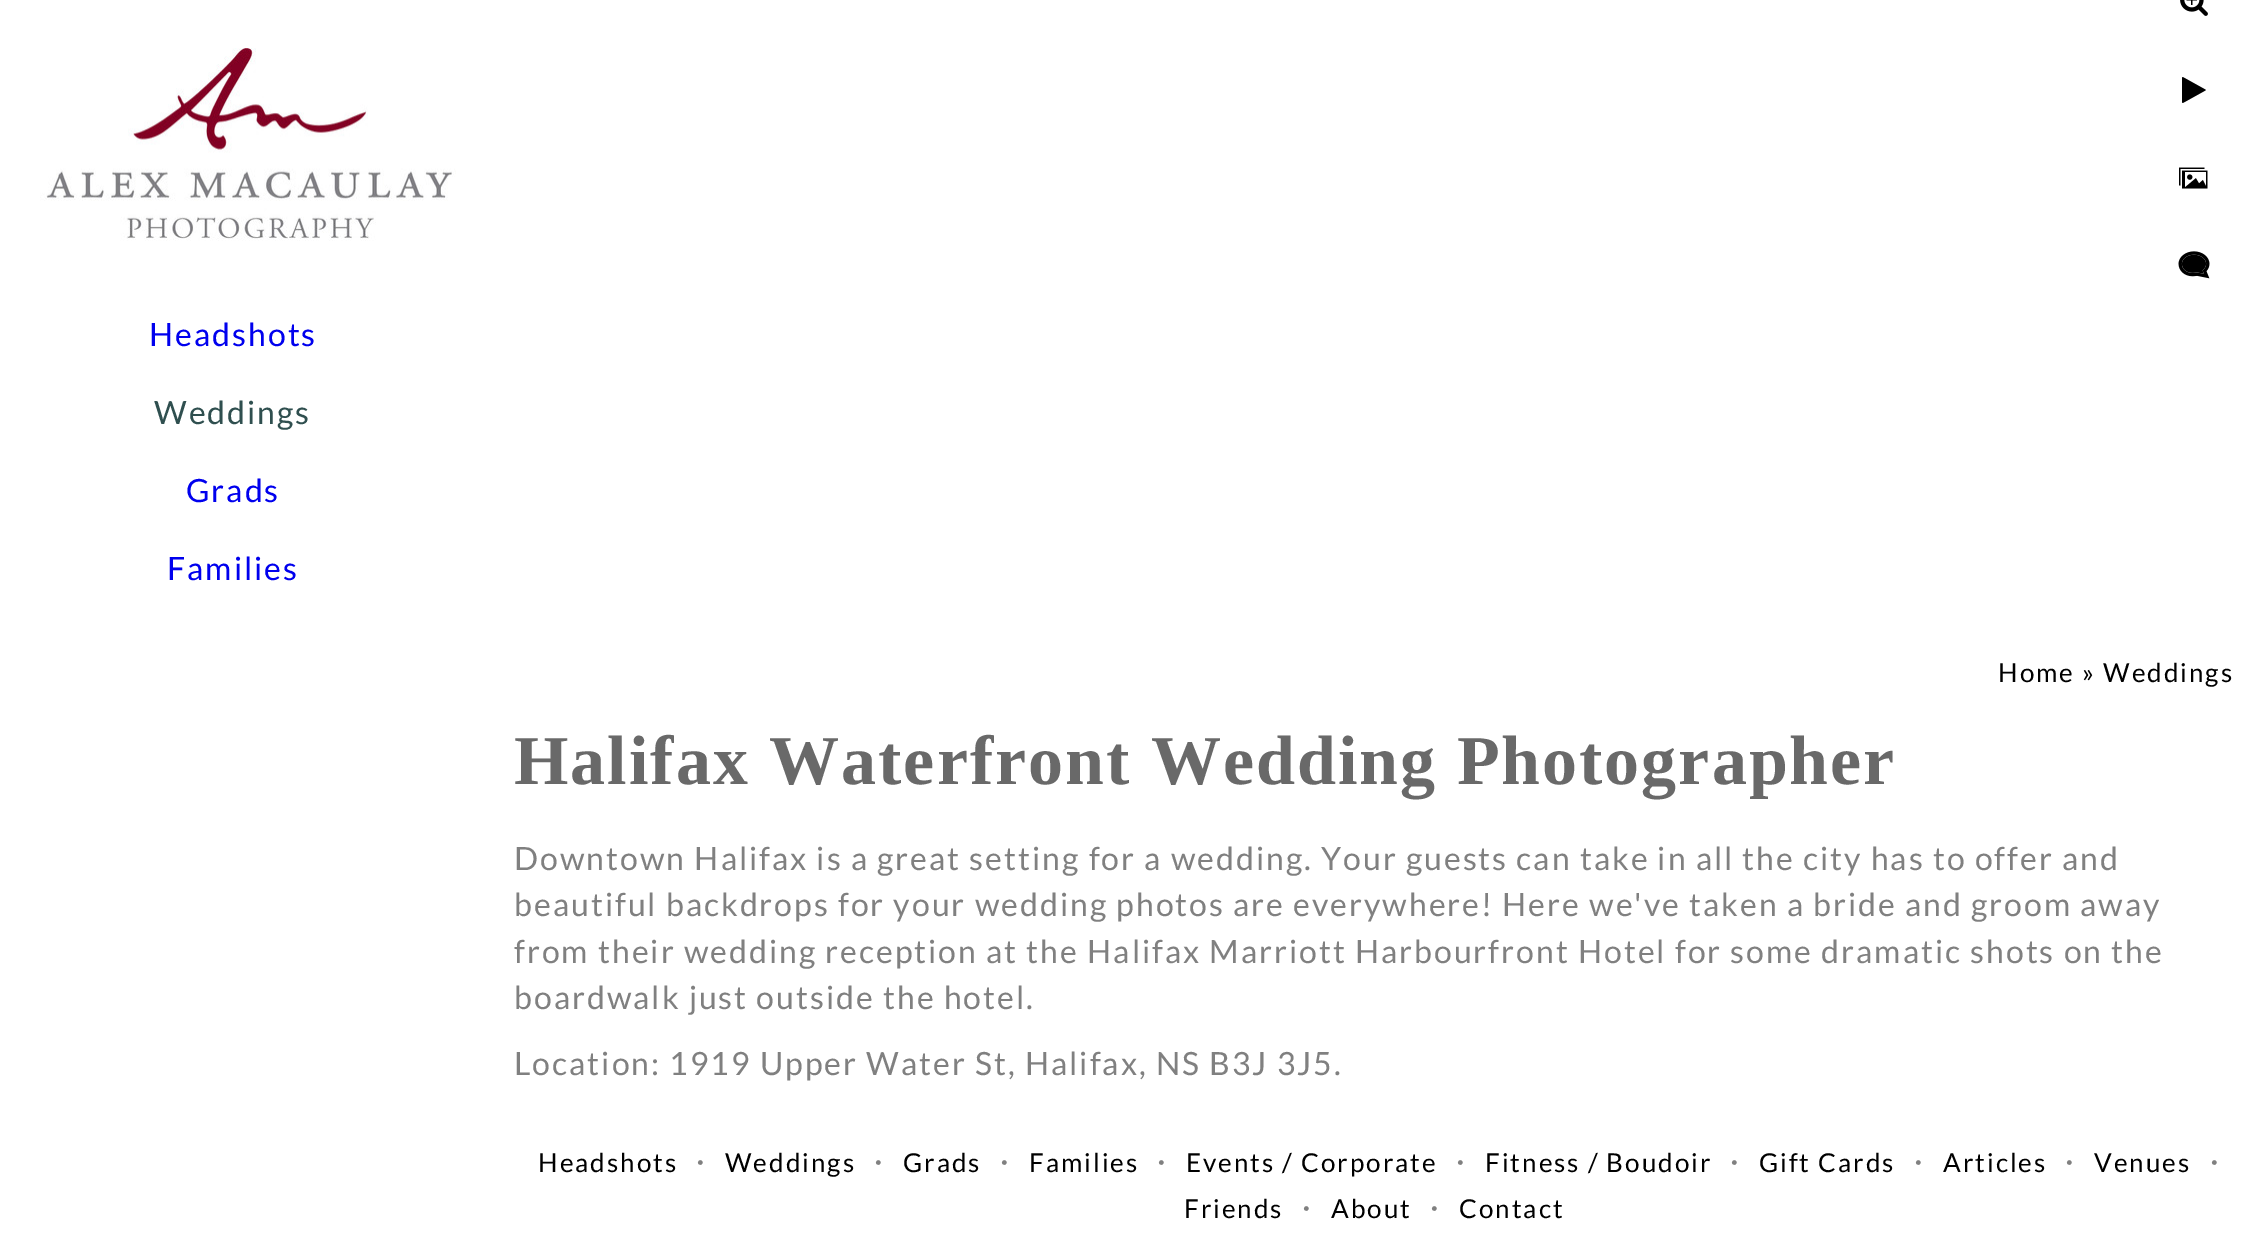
%!PS-Adobe-3.0
%%BoundingBox: 0 0 2247 1247
%%LanguageLevel: 3
%%Pages: 1
%%EndComments
%%BeginProlog
/m { moveto } bind def
/fn { [ exch dup neg 0 0 3 -1 roll 0 0 ] selectfont } def
/bx { rectfill } def
/im { 5 dict begin { /h /w /y /x /name } { exch def } forall
  gsave x y translate w h scale
  w h 8 [w 0 0 h 0 0] name (r) file false 3 colorimage grestore end } def
%%EndProlog
%%BeginSetup
<< /PageSize [2247 1247] >> setpagedevice
%%EndSetup
%%Page: 1 1
0 1247 translate 1 -1 scale
4 setmiterlimit
1 setgray
0 0 2247 1247 bx
(image0.raw) 2180 0 28 16 im
(image1.raw) 2182 77 24 26 im
(image2.raw) 2179 167 29 22 im
(image3.raw) 2178 251 32 28 im
(image4.raw) 40 48 416 193 im
/Lato-Regular 32 fn
0 0 0.933 setrgbcolor
149 346 m 2 0 (Headshots) ashow
0.184 0.31 0.31 setrgbcolor
154 424 m 2 0 (Weddings) ashow
0 0 0.933 setrgbcolor
186 502 m 2 0 (Grads) ashow
167 580 m 2 0 (Families) ashow
/Lato-Regular 26 fn
0 setgray
1998 682 m 2 0 (Home » Weddings) ashow
/LiberationSerif-Bold 70 fn
0.412 setgray
514 784 m 2 0 (Halifax Waterfront Wedding Photographer) ashow
/Lato-Regular 32 fn
0.502 setgray
514 870 m 2 0 (Downtown Halifax is a great setting for a wedding. Your guests can take in all the city has to offer and) ashow
514 916 m 2 0 (beautiful backdrops for your wedding photos are everywhere! Here we've taken a bride and groom away) ashow
514 963 m 2 0 (from their wedding reception at the Halifax Marriott Harbourfront Hotel for some dramatic shots on the) ashow
514 1009 m 2 0 (boardwalk just outside the hotel.) ashow
514 1075 m 2 0 (Location: 1919 Upper Water St, Halifax, NS B3J 3J5.) ashow
/Lato-Regular 26 fn
0 setgray
538 1172 m 2 0 (Headshots) ashow
/Lato-Regular 32 fn
0.502 setgray
696 1172 m 2 0 (·) ashow
/Lato-Regular 26 fn
0 setgray
725 1172 m 2 0 (Weddings) ashow
/Lato-Regular 32 fn
0.502 setgray
874 1172 m 2 0 (·) ashow
/Lato-Regular 26 fn
0 setgray
903 1172 m 2 0 (Grads) ashow
/Lato-Regular 32 fn
0.502 setgray
1000 1172 m 2 0 (·) ashow
/Lato-Regular 26 fn
0 setgray
1029 1172 m 2 0 (Families) ashow
/Lato-Regular 32 fn
0.502 setgray
1157 1172 m 2 0 (·) ashow
/Lato-Regular 26 fn
0 setgray
1186 1172 m 2 0 (Events / Corporate) ashow
/Lato-Regular 32 fn
0.502 setgray
1456 1172 m 2 0 (·) ashow
/Lato-Regular 26 fn
0 setgray
1485 1172 m 2 0 (Fitness / Boudoir) ashow
/Lato-Regular 32 fn
0.502 setgray
1730 1172 m 2 0 (·) ashow
/Lato-Regular 26 fn
0 setgray
1759 1172 m 2 0 (Gift Cards) ashow
/Lato-Regular 32 fn
0.502 setgray
1914 1172 m 2 0 (·) ashow
/Lato-Regular 26 fn
0 setgray
1943 1172 m 2 0 (Articles) ashow
/Lato-Regular 32 fn
0.502 setgray
2065 1172 m 2 0 (·) ashow
/Lato-Regular 26 fn
0 setgray
2094 1172 m 2 0 (Venues) ashow
/Lato-Regular 32 fn
0.502 setgray
2210 1172 m 2 0 (·) ashow
/Lato-Regular 26 fn
0 setgray
1184 1218 m 2 0 (Friends) ashow
/Lato-Regular 32 fn
0.502 setgray
1302 1218 m 2 0 (·) ashow
/Lato-Regular 26 fn
0 setgray
1331 1218 m 2 0 (About) ashow
/Lato-Regular 32 fn
0.502 setgray
1430 1218 m 2 0 (·) ashow
/Lato-Regular 26 fn
0 setgray
1459 1218 m 2 0 (Contact) ashow
showpage
%%EOF
